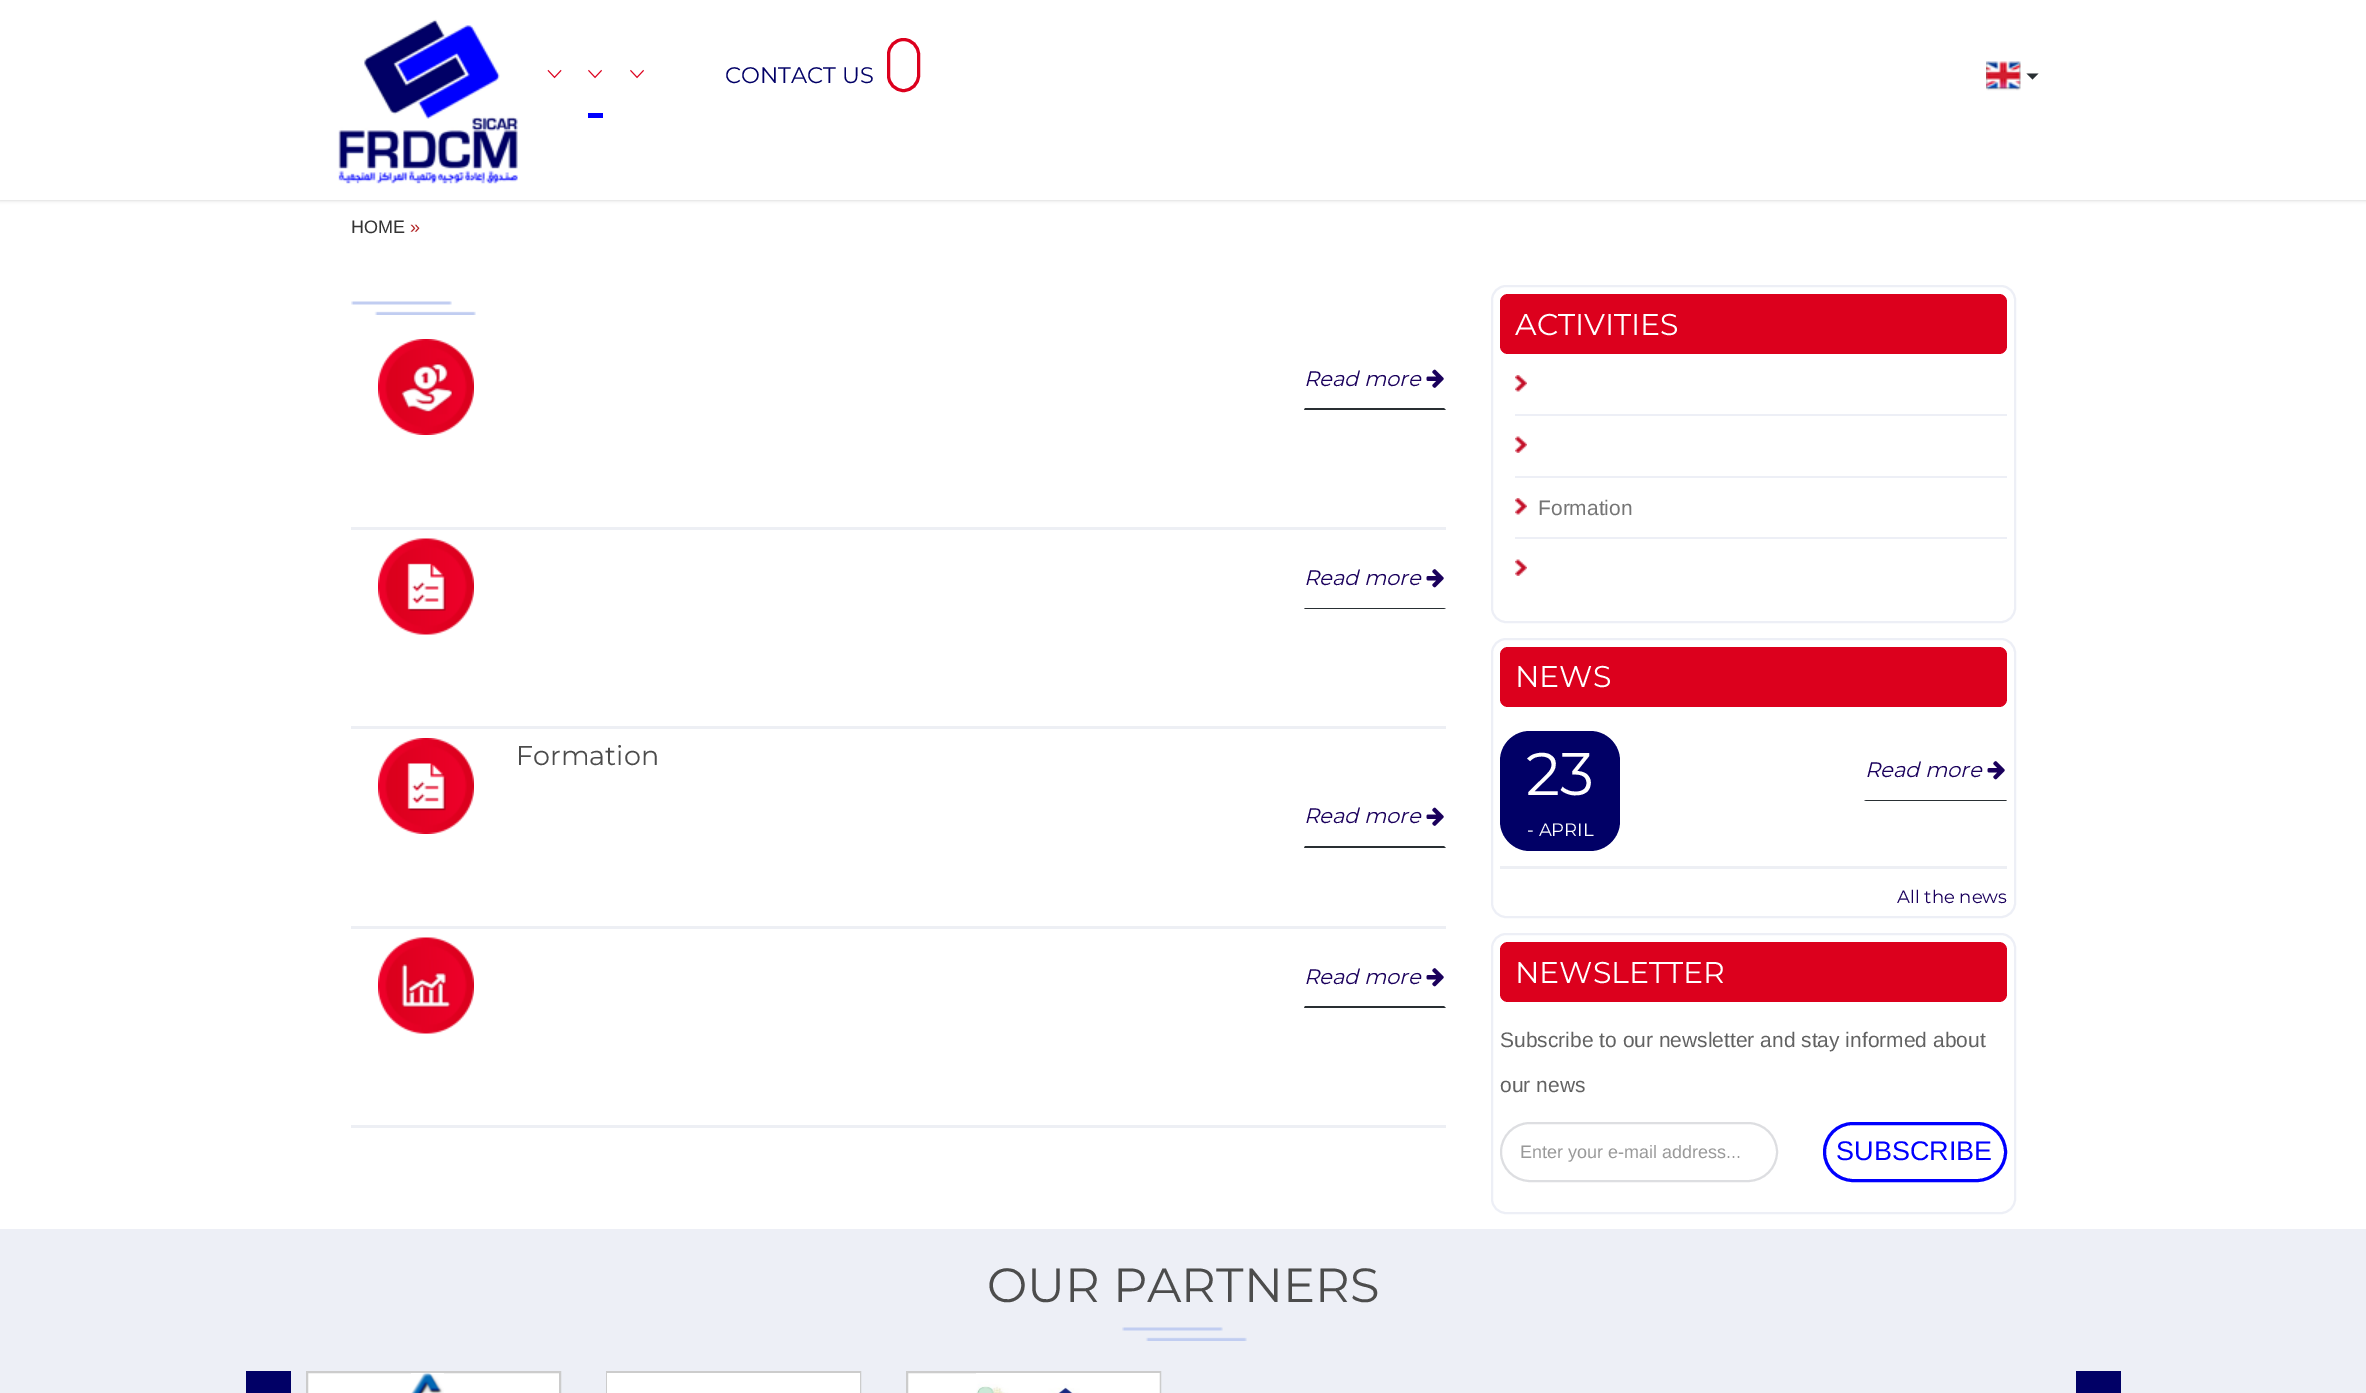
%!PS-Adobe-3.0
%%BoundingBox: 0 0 2366 1393
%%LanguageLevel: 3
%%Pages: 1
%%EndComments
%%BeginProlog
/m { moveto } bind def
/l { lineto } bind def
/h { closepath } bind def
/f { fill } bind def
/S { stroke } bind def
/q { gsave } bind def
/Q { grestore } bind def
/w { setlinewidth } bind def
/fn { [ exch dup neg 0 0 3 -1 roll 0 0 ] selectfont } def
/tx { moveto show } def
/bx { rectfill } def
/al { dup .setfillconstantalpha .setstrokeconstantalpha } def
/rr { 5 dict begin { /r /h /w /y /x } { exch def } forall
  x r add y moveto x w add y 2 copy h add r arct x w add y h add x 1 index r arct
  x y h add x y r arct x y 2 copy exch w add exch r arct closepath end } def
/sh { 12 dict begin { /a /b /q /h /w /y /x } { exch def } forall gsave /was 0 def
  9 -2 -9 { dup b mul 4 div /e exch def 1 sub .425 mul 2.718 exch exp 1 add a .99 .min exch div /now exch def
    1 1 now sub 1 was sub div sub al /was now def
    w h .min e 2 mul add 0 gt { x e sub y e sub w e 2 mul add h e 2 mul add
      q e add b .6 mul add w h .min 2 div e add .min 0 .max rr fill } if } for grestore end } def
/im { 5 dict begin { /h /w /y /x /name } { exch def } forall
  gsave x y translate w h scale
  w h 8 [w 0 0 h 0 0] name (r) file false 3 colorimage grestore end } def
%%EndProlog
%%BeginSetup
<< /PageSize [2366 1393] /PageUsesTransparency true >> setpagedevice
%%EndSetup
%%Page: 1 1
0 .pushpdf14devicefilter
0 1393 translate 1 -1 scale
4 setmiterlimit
1 setgray
0 0 2366 1393 bx
q
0 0 m 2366 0 l 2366 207 l 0 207 l h 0 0 m 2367 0 l 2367 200 l 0 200 l h eoclip newpath
0 setgray
0 0 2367 200 0 2 0.2 sh
Q
(image0.raw) 338 19 180 165 im
(image1.raw) 547 69 15 10 im
0 0 0.996 setrgbcolor
588 113 15 5 bx
(image2.raw) 588 69 14 10 im
(image2.raw) 630 69 14 10 im
/Montserrat-Regular 22.5 fn
0.004 0 0.4 setrgbcolor
(CONTACT US) 725 83 tx
0.863 0 0.114 setrgbcolor
3 w
888.5 39.5 30 51 15 rr S
(image3.raw) 1986 61 35 30 im
0.161 0.184 0.2 setrgbcolor
2026.5 73.5 m 2038.5 73.5 l 2032.5 79.5 l h f
/LiberationSans-Regular 18 fn
0.204 setgray
(HOME) 351 233 tx
0.694 0.141 0.145 setrgbcolor
(») 410 233 tx
(image4.raw) 351 301 125 14 im
0.929 0.937 0.957 setrgbcolor
351 527 1095 3 bx
(image5.raw) 378 339 96 96 im
0.161 0.184 0.2 setrgbcolor
1446 410 m 1304 410 l 1305 408 l 1444 408 l h f
/Montserrat-Italic 21 fn
0.102 0 0.361 setrgbcolor
(Read more) 1304 386 tx
(image6.raw) 1426 369 18 19 im
0.929 0.937 0.957 setrgbcolor
351 726 1095 3 bx
(image7.raw) 378 538 96 97 im
0.161 0.184 0.2 setrgbcolor
1446 609 m 1304 609 l 1305 608 l 1444 608 l h f
0.102 0 0.361 setrgbcolor
(Read more) 1304 585 tx
(image8.raw) 1426 569 18 19 im
0.929 0.937 0.957 setrgbcolor
351 926 1095 3 bx
(image9.raw) 378 738 96 96 im
/Montserrat-Regular 27 fn
0.298 setgray
(Formation) 516 765 tx
0.161 0.184 0.2 setrgbcolor
1446 848 m 1304 848 l 1305 846 l 1444 846 l h f
/Montserrat-Italic 21 fn
0.102 0 0.361 setrgbcolor
(Read more) 1304 823 tx
(image6.raw) 1426 807 18 19 im
0.929 0.937 0.957 setrgbcolor
351 1125 1095 3 bx
(image10.raw) 378 937 96 97 im
0.161 0.184 0.2 setrgbcolor
1446 1008 m 1304 1008 l 1305 1006 l 1444 1006 l h f
0.102 0 0.361 setrgbcolor
(Read more) 1304 984 tx
(image8.raw) 1426 968 18 19 im
0.929 0.937 0.965 setrgbcolor
2 w
1492 286 523 336 14 rr S
0.863 0 0.114 setrgbcolor
1500 294 507 60 8 rr f
/Montserrat-Regular 30 fn
1 setgray
(ACTIVITIES) 1515 335 tx
0.929 0.937 0.965 setrgbcolor
1515 414 492 2 bx
(image11.raw) 1515 375 12 17 im
1515 476 492 2 bx
(image12.raw) 1515 436 12 17 im
1515 537 492 2 bx
(image11.raw) 1515 498 12 17 im
/LiberationSans-Regular 21 fn
0.459 setgray
(Formation) 1538 515 tx
(image12.raw) 1515 559 12 17 im
0.929 0.937 0.965 setrgbcolor
1492 639 523 278 14 rr S
0.863 0 0.114 setrgbcolor
1500 647 507 60 8 rr f
/Montserrat-Regular 30 fn
1 setgray
(NEWS) 1515 687 tx
0.929 0.937 0.957 setrgbcolor
1500 866 507 3 bx
0.004 0 0.4 setrgbcolor
1500 731 120 120 30 rr f
/Montserrat-Regular 60 fn
1 setgray
(23) 1526 795 tx
/Montserrat-Regular 18 fn
(- APRIL) 1527 836 tx
0.161 0.184 0.2 setrgbcolor
2007 801 m 1864 801 l 1866 800 l 2006 800 l h f
/Montserrat-Italic 21 fn
0.102 0 0.361 setrgbcolor
(Read more) 1865 777 tx
(image8.raw) 1987 761 18 19 im
/Montserrat-Regular 18 fn
(All the news) 1897 903 tx
0.929 0.937 0.965 setrgbcolor
1492 934 523 279 14 rr S
0.863 0 0.114 setrgbcolor
1500 942 507 60 8 rr f
/Montserrat-Regular 30 fn
1 setgray
(NEWSLETTER) 1515 983 tx
/LiberationSans-Regular 21 fn
0.384 setgray
(Subscribe to our newsletter and stay informed about) 1500 1047 tx
(our news) 1500 1092 tx
0.867 0.871 0.882 setrgbcolor
1501 1123 276 58 29 rr S
/LiberationSans-Regular 18 fn
0.6 setgray
(Enter your e-mail address...) 1520 1158 tx
0 0 0.996 setrgbcolor
3 w
1824.5 1123.5 181 57 28.5 rr S
/LiberationSans-Regular 27 fn
(SUBSCRIBE) 1836 1160 tx
0.929 0.937 0.965 setrgbcolor
0 1229 2366 164 bx
(image13.raw) 1122 1327 125 14 im
/Montserrat-Regular 48 fn
0.298 setgray
(OUR PARTNERS) 987 1302 tx
0.004 0 0.4 setrgbcolor
246 1371 45 22 bx
2076 1371 45 22 bx
1 setgray
307 1372 m 560 1372 l 560 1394 l 307 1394 l h q f Q
0.8 setgray
2 w
S
(image14.raw) 411 1373 33 20 im
607 1372 253 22 rectstroke
1 setgray
607 1373 253 20 bx
907 1372 m 1160 1372 l 1160 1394 l 907 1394 l h q f Q
0.8 setgray
S
(image15.raw) 976 1373 184 20 im
.poppdf14devicefilter showpage
%%EOF
